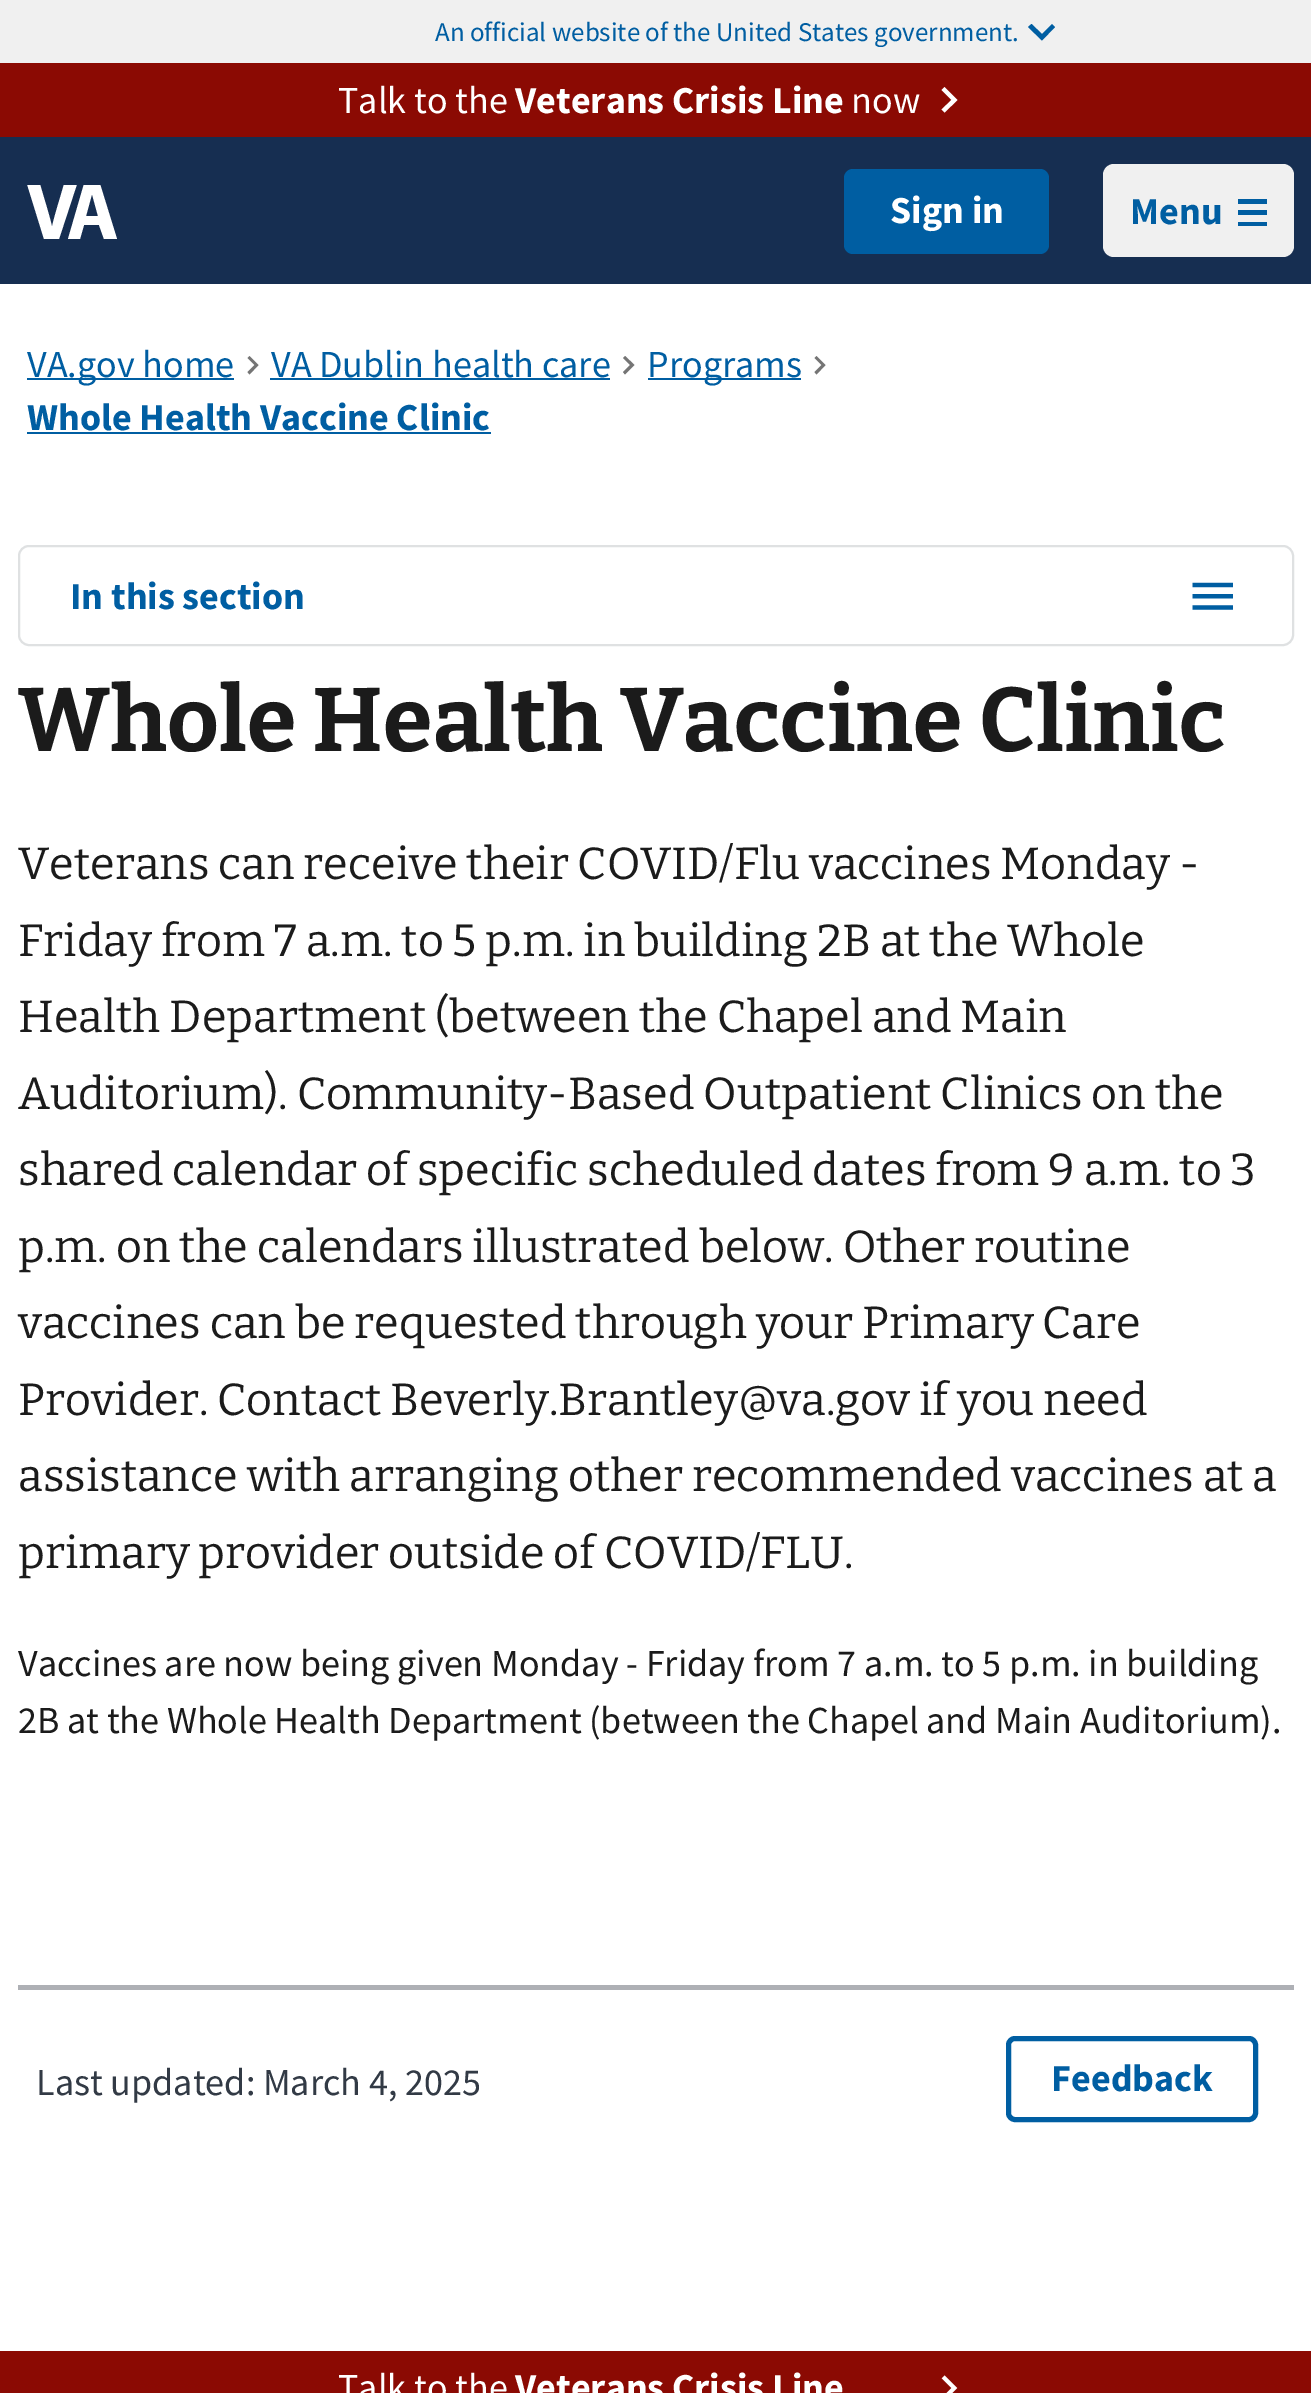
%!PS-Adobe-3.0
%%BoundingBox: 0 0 1311 2393
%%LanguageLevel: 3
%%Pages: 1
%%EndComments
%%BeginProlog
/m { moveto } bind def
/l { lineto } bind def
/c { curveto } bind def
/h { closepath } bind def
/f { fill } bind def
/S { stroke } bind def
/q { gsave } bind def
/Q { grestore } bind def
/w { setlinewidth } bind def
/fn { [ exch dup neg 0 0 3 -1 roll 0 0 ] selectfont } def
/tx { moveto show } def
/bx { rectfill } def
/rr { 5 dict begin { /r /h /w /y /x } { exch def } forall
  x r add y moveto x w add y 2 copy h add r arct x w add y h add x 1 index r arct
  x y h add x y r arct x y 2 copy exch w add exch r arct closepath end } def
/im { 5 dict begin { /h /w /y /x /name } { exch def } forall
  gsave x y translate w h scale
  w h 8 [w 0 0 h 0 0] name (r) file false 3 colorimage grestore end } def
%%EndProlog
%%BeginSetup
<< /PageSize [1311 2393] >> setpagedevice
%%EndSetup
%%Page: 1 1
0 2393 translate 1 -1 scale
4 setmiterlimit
1 setgray
0 0 1311 2393 bx
0.086 0.18 0.318 setrgbcolor
0 137 1311 147 bx
0.941 setgray
0 0 1311 63 bx
/SourceSansPro-Regular 27 fn
0 0.369 0.635 setrgbcolor
(An official website of the United States government.) 435 41 tx
1052 24 m 1042 34 l 1031.5 24 l 1028 27 l 1042 40.5 l 1055 27 l h eofill
0.545 0.039 0.012 setrgbcolor
0 63 1311 74 bx
/SourceSansPro-Regular 38.15 fn
1 setgray
(Talk to the) 338 113 tx
/SourceSansPro-Bold 38.15 fn
(Veterans Crisis Line) 515 113 tx
/SourceSansPro-Regular 38.15 fn
(now) 851 113 tx
944.5 87 m 941.5 90 l 951.5 100 l 941.5 109.5 l 944.5 112.5 l 957.5 100 l h eofill
q
27 185 90 54 rectclip
44 239 m 27 184 l 40 184 l 44 199 49 213 52 227 c 55 213 60 199 64 184 c 77 184 l 59 239 l h 84 225 m 80 239 l 68 239 l 84 184 l 100 184 l 117 239 l 104 239 l 99 225 l h 98 216 m 92 194 l 86 216 l h f
Q
0 0.369 0.635 setrgbcolor
844 169 205 85 9 rr f
/SourceSansPro-Bold 38.15 fn
1 setgray
(Sign in) 890 223 tx
0.941 setgray
1103 164 191 93 11 rr f
0 0.369 0.635 setrgbcolor
(Menu) 1130 224 tx
q
1231 191 36 39 rectclip
1238 226 m 1238 222 l 1278 222 l 1278 226 l h 1238 215 m 1238 210 l 1278 210 l 1278 215 l h 1238 204 m 1238 199 l 1278 199 l 1278 204 l h f
Q
27 378 207 2 bx
/SourceSansPro-Regular 38.15 fn
(VA.gov home) 27 377 tx
0.459 setgray
249.5 356 m 247.5 358 l 254.5 365 l 247.5 372 l 249.5 374.5 l 258.5 365 l h f
0 0.369 0.635 setrgbcolor
(VA Dublin health care) 271 377 tx
270 378 340 2 bx
0.459 setgray
625 356 m 623 358 l 630 365 l 623 372 l 625 374.5 l 634.5 365 l h f
0 0.369 0.635 setrgbcolor
648 378 153 2 bx
(Programs) 647 377 tx
0.459 setgray
816.5 356 m 814.5 358 l 821.5 365 l 814.5 372 l 816.5 374.5 l 825.5 365 l h f
/SourceSansPro-Bold 38.15 fn
0 0.369 0.635 setrgbcolor
(Whole Health Vaccine Clinic) 27 430 tx
27 432 464 2 bx
0.875 0.882 0.886 setrgbcolor
2 w
19 546 1274 99 10 rr S
0 0.369 0.635 setrgbcolor
(In this section) 70 609 tx
(image0.raw) 1192 582 41 28 im
/Bitter-Bold 90 fn
0.106 setgray
(Whole Health Vaccine Clinic) 18 751 tx
/Bitter-Regular 45 fn
(Veterans can receive their COVID/Flu vaccines Monday -) 18 879 tx
(Friday from 7 a.m. to 5 p.m. in building 2B at the Whole) 18 956 tx
(Health Department \(between the Chapel and Main) 18 1032 tx
(Auditorium\). Community-Based Outpatient Clinics on the) 18 1109 tx
(shared calendar of specific scheduled dates from 9 a.m. to 3) 18 1185 tx
(p.m. on the calendars illustrated below. Other routine) 18 1262 tx
(vaccines can be requested through your Primary Care) 18 1338 tx
(Provider. Contact Beverly.Brantley@va.gov if you need) 18 1415 tx
(assistance with arranging other recommended vaccines at a) 18 1491 tx
(primary provider outside of COVID/FLU.) 18 1568 tx
/SourceSansPro-Regular 38.15 fn
(Vaccines are now being given Monday - Friday from 7 a.m. to 5 p.m. in building) 18 1676 tx
18 1733 m -0.1 0 32 (2B at the Whole Health Department \(between the Chapel and Main Auditorium\).) widthshow
0.682 0.69 0.71 setrgbcolor
18 1985 1276 5 bx
0.196 0.227 0.271 setrgbcolor
(Last updated: March 4, 2025) 36 2095 tx
0 0.369 0.635 setrgbcolor
5 w
1008.5 2038.5 247 81 6.5 rr S
/SourceSansPro-Bold 38.15 fn
(Feedback) 1051 2091 tx
0.545 0.039 0.012 setrgbcolor
0 2351 1311 42 bx
/SourceSansPro-Regular 38.15 fn
1 setgray
(Talk to the) 338 2400 tx
/SourceSansPro-Bold 38.15 fn
(Veterans Crisis Line) 515 2400 tx
(image1.raw) 941 2375 17 18 im
showpage
%%EOF
